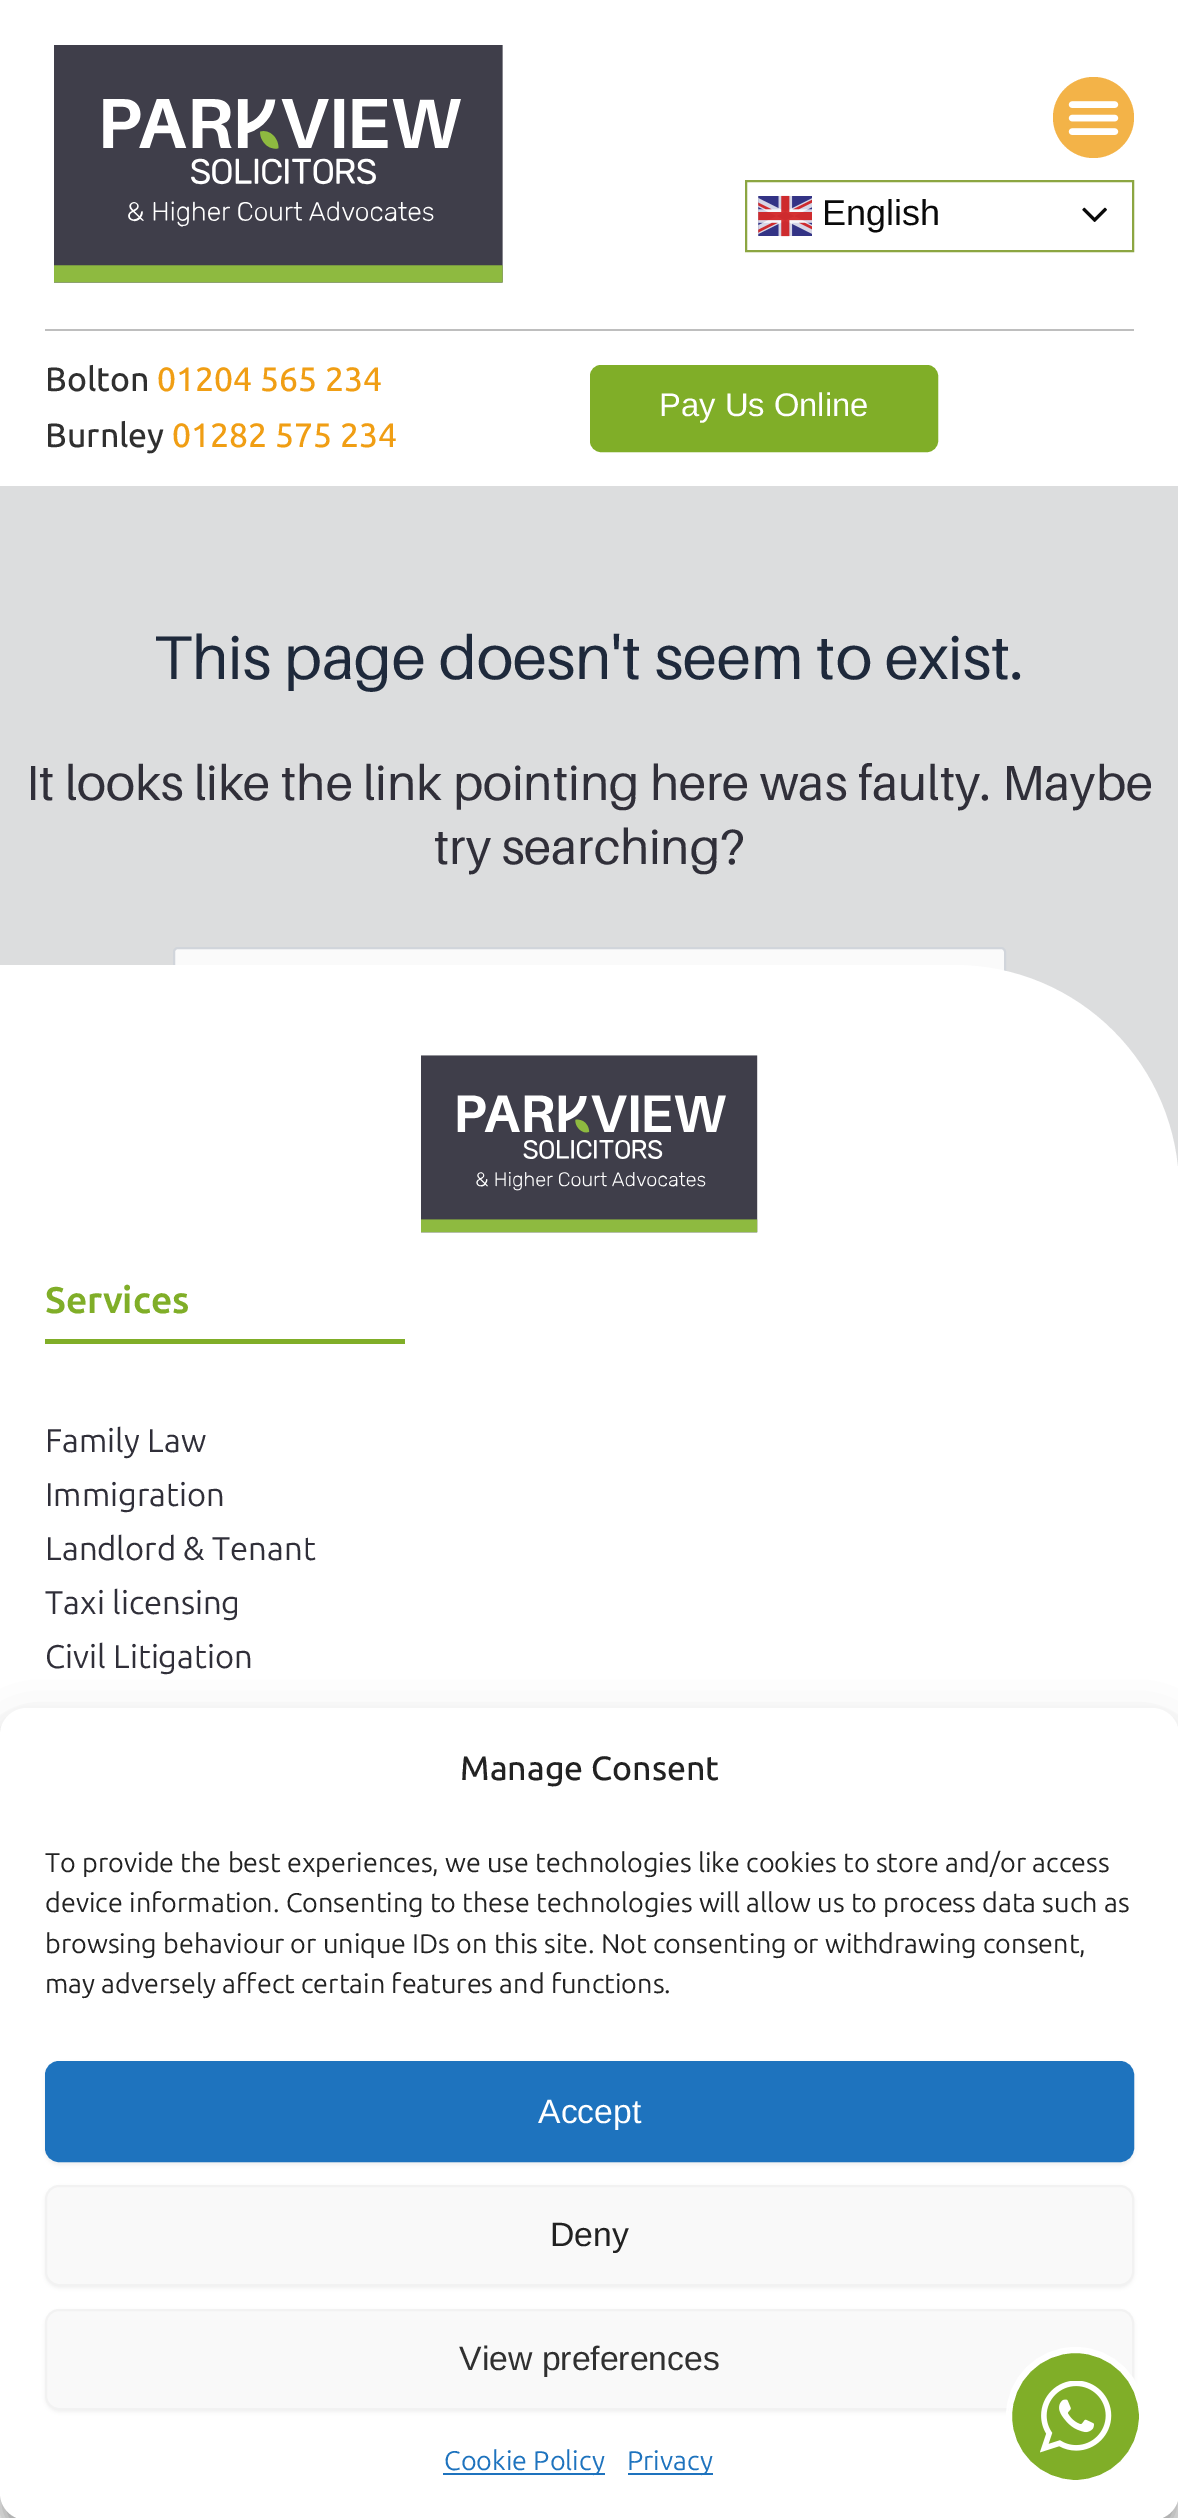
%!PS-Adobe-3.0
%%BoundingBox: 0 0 1178 2518
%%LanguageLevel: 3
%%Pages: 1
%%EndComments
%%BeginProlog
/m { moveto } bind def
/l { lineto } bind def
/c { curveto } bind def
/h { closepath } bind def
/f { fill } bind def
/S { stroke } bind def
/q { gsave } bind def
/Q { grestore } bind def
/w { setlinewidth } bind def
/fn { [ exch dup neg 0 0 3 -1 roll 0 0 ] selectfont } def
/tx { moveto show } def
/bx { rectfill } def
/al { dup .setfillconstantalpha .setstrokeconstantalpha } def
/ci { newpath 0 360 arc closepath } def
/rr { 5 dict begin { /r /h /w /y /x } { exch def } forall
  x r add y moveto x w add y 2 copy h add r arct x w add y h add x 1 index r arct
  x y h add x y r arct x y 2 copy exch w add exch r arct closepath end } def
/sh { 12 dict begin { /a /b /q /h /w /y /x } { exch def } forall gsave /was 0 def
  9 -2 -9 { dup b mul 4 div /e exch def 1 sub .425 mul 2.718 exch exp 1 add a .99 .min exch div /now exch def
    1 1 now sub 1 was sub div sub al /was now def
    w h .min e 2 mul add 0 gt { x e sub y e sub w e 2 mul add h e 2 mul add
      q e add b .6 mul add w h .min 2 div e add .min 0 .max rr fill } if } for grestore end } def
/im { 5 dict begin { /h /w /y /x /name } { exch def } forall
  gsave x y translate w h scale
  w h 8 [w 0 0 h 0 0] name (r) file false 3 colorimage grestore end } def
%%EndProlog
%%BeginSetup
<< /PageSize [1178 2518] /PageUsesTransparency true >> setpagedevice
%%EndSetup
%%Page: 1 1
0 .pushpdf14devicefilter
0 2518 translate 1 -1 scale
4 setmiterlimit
0.863 0.867 0.871 setrgbcolor
0 0 1178 2518 bx
1 setgray
0 0 1178 486 bx
0.745 setgray
45 329 1089 2 bx
(image0.raw) 54 45 449 238 im
0.953 0.702 0.282 setrgbcolor
1093.5 117.5 40.5 ci f
(image1.raw) 1068 101 51 34 im
0.549 0.651 0.255 setrgbcolor
2 w
746 181 387 70 rectstroke
(image2.raw) 758 195 54 42 im
/LiberationSans-Regular 36 fn
0.039 setgray
(English) 822 225 tx
(image3.raw) 1082 207 25 15 im
/Ubuntu-Medium 33.75 fn
0.188 setgray
(Bolton) 45 391 tx
0.941 0.62 0.078 setrgbcolor
(01204 565 234) 157 391 tx
0.188 setgray
(Burnley) 45 447 tx
0.941 0.62 0.078 setrgbcolor
(01282 575 234) 172 447 tx
0.502 0.682 0.157 setrgbcolor
591 366 346 85 10 rr q f Q
S
/LiberationSans-Regular 32.75 fn
1 setgray
(Pay Us Online) 659 416 tx
/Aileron-Regular 61.5 fn
0.118 0.161 0.231 setrgbcolor
(This page doesn't seem to exist.) 154 679 tx
/Aileron-Regular 49.25 fn
0.188 0.184 0.224 setrgbcolor
(It looks like the link pointing here was faulty. Maybe) 26 800 tx
(try searching?) 434 864 tx
0.98 setgray
174 948 831 88 4 rr q f Q
0.82 0.835 0.859 setrgbcolor
S
1 setgray
0 965 m 954 965 l 1078.5 965 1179 1065.5 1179 1190 c 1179 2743 l 0 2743 l h f
(image4.raw) 421 1055 337 178 im
/Ubuntu-Bold 37 fn
0.502 0.682 0.157 setrgbcolor
(Services) 45 1313 tx
45 1339 360 5 bx
/Ubuntu-Regular 32.75 fn
0.188 0.184 0.224 setrgbcolor
(Family Law) 45 1452 tx
(Immigration) 45 1506 tx
(Landlord & Tenant) 45 1560 tx
(Taxi licensing) 45 1614 tx
(Civil Litigation) 45 1668 tx
0 setgray
0 1721 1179 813 27 7 0.23 sh
0 1730 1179 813 27 22.5 0.19 sh
1 setgray
0 1708 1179 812 27 rr f
/Ubuntu-Medium 33.75 fn
0.133 setgray
(Manage Consent) 460 1780 tx
/Ubuntu-Regular 27 fn
(To provide the best experiences, we use technologies like cookies to store and/or access) 45 1872 tx
(device information. Consenting to these technologies will allow us to process data such as) 45 1912 tx
(browsing behaviour or unique IDs on this site. Not consenting or withdrawing consent,) 45 1953 tx
(may adversely affect certain features and functions.) 45 1993 tx
0 setgray
45 2063 1089 102 14 2 0.05 sh
0.118 0.451 0.745 setrgbcolor
46 2062 1087 99 13 rr q f Q
S
/LiberationSans-Regular 33.75 fn
1 setgray
(Accept) 538 2123 tx
0 setgray
45 2187 1089 101 14 2 0.05 sh
0.976 setgray
46 2186 1087 99 13 rr q f Q
0.949 setgray
S
0.133 setgray
(Deny) 550 2246 tx
0 setgray
45 2311 1089 101 14 2 0.05 sh
0.976 setgray
46 2310 1087 99 13 rr q f Q
0.949 setgray
S
0.188 setgray
(View preferences) 459 2370 tx
0.118 0.451 0.745 setrgbcolor
443 2473 162 2 bx
/Ubuntu-Regular 27 fn
(Cookie Policy) 444 2470 tx
628 2473 85 2 bx
(Privacy) 627 2470 tx
1 setgray
1075.5 2416.5 68.5 ci S
1075.5 2416.5 66.5 ci S
0.502 0.682 0.157 setrgbcolor
1075.5 2416.5 64.5 ci q f Q
1 setgray
S
(image5.raw) 1040 2381 72 72 im
.poppdf14devicefilter showpage
%%EOF
